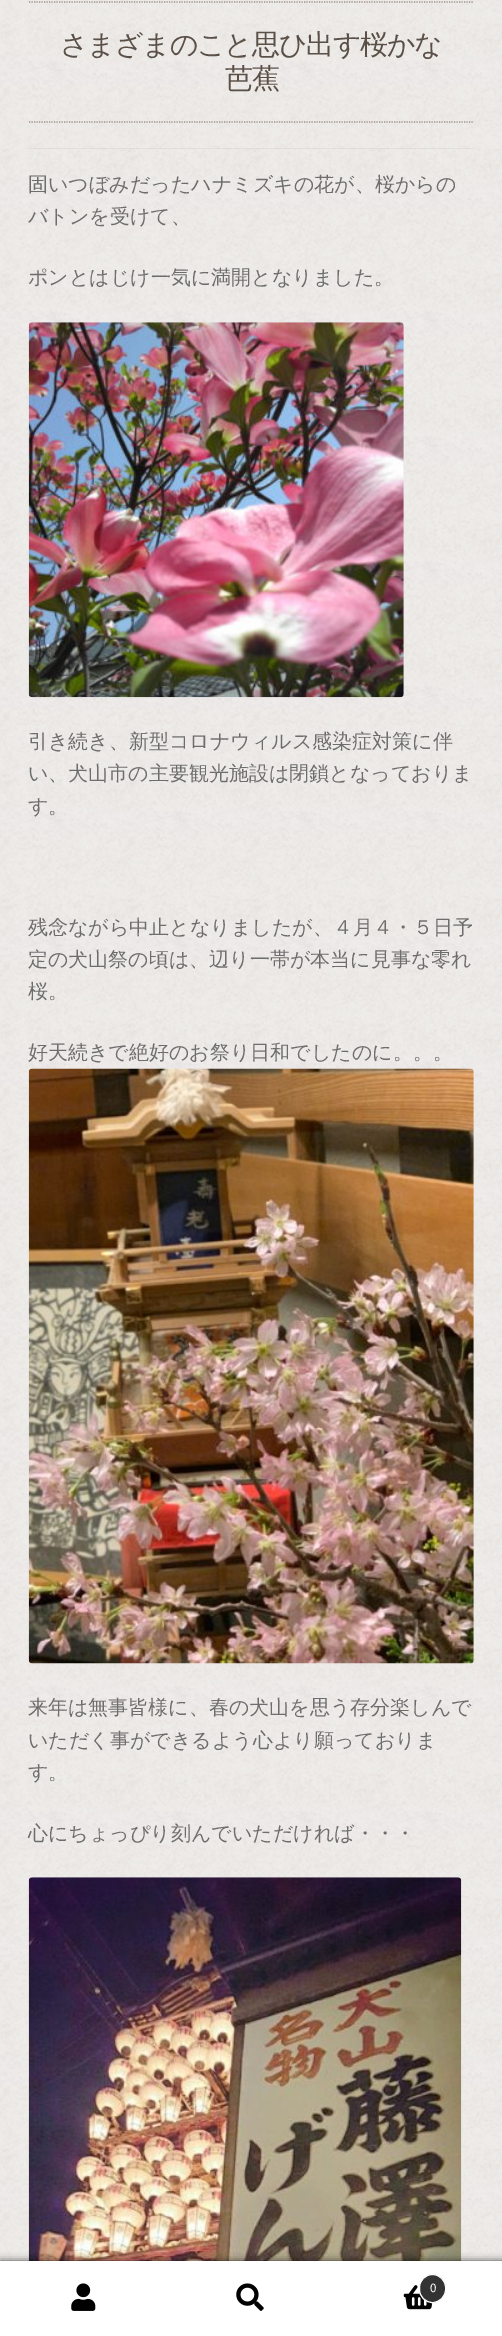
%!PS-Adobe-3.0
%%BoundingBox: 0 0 502 2336
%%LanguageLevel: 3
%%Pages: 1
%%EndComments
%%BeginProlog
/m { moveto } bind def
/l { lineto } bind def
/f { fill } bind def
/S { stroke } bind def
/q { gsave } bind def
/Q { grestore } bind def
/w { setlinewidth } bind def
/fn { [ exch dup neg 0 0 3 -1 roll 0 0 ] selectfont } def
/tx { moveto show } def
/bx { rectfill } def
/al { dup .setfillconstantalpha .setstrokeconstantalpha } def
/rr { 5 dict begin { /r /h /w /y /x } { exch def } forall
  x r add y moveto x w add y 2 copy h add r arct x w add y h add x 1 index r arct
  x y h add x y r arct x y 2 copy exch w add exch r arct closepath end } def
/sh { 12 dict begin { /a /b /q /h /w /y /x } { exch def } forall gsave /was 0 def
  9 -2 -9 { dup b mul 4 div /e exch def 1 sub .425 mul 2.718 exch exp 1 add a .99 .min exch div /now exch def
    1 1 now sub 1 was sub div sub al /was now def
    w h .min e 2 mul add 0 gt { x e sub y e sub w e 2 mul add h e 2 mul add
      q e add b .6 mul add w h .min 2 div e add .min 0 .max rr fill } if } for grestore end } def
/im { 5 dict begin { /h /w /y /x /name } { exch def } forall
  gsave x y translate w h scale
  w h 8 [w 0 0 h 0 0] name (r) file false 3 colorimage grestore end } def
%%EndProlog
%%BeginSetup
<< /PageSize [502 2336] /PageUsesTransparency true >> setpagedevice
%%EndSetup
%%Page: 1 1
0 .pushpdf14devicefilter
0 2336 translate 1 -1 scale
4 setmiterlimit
1 setgray
0 0 502 2336 bx
(image0.raw) 0 0 502 2261 im
0.05 al
0 setgray
29 148 445 1 bx
1 al
0.608 0.561 0.525 setrgbcolor
1.2 w
[1.25 1.25] 0 setdash
29 2 m 474 2 l S
29 122 m 474 122 l S
/WenQuanYiZenHei-Medium 28 fn
0.357 0.314 0.282 setrgbcolor
60 54 m -1.25 0 (さまざまのこと思ひ出す桜かな) ashow
225 88 m -1.25 0 (芭蕉) ashow
/WenQuanYiZenHei-Medium 20 fn
0.427 setgray
(固いつぼみだったハナミズキの花が、桜からの) 28 191 tx
(バトンを受けて、) 28 223 tx
(ポンとはじけ一気に満開となりました。) 28 284 tx
(image1.raw) 28 322 376 376 im
(引き続き、新型コロナウィルス感染症対策に伴) 28 748 tx
(い、犬山市の主要観光施設は閉鎖となっておりま) 28 780 tx
(す。) 28 813 tx
(残念ながら中止となりましたが、４月４・５日予) 28 934 tx
(定の犬山祭の頃は、辺り一帯が本当に見事な零れ) 28 966 tx
(桜。) 28 998 tx
(好天続きで絶好のお祭り日和でしたのに。。。) 28 1059 tx
(image2.raw) 28 1068 446 596 im
(来年は無事皆様に、春の犬山を思う存分楽しんで) 28 1714 tx
(いただく事ができるよう心より願っておりま) 28 1747 tx
(す。) 28 1779 tx
(心にちょっぴり刻んでいただければ・・・) 28 1840 tx
(image3.raw) 28 1877 434 384 im
0 setgray
0 2261 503 75 0 4 0.7 sh
1 setgray
0 2261 502 75 bx
(image4.raw) 71 2283 25 28 im
(image5.raw) 236 2283 28 28 im
(image6.raw) 403 2285 30 25 im
0.2 setgray
419.5 2274.5 26 28 13 rr q f Q
1 setgray
1 w
[] 0 setdash
S
/SourceSansPro-Regular 13 fn
(0) 430 2292 tx
.poppdf14devicefilter showpage
%%EOF
